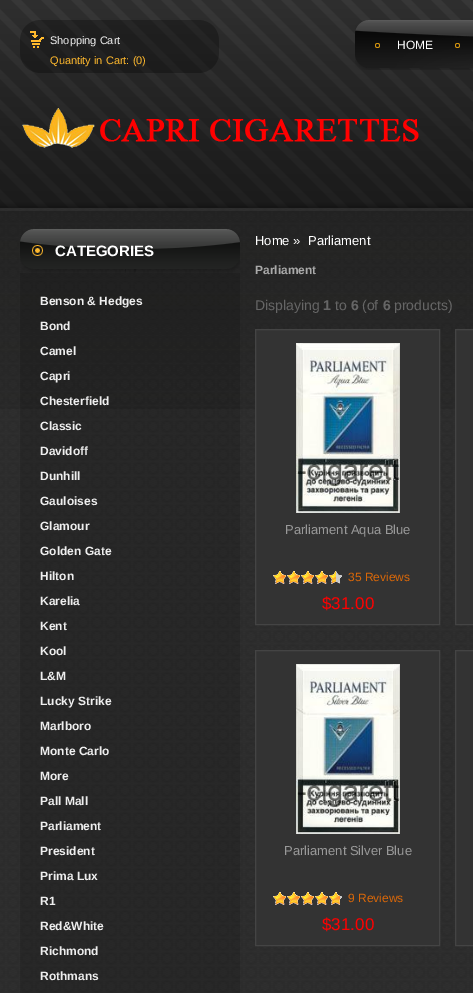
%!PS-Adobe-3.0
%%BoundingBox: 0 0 473 993
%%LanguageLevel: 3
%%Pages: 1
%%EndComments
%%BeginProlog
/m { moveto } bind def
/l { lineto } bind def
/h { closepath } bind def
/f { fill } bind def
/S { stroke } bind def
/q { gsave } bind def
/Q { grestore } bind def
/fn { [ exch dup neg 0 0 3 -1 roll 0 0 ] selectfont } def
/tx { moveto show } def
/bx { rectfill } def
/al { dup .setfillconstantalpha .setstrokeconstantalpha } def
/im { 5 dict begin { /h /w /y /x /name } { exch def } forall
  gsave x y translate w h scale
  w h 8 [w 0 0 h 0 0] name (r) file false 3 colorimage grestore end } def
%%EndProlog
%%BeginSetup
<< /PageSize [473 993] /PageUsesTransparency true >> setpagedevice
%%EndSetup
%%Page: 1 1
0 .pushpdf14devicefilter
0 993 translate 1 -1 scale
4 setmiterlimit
1 setgray
0 0 473 993 bx
(image0.raw) 0 208 473 785 im
(image1.raw) 0 0 473 409 im
(image2.raw) 20 20 199 53 im
(image3.raw) 30 31 14 17 im
/LiberationSans-Regular 11 fn
0.933 setgray
(Shopping Cart) 50 44 tx
1 0.725 0.176 setrgbcolor
(Quantity in Cart: \(0\)) 50 64 tx
(image4.raw) 355 20 118 50 im
(image5.raw) 375 43 5 5 im
/LiberationSans-Regular 12 fn
1 setgray
(HOME) 397 49 tx
(image5.raw) 455 43 5 5 im
(image6.raw) 22 108 397 40 im
(image7.raw) 20 229 220 44 im
/LiberationSans-Bold 15 fn
(CATEGORIES) 55 256 tx
0.14 al
0 setgray
20 273 220 720 bx
/LiberationSans-Bold 12 fn
1 al
0.933 setgray
(Benson & Hedges) 40 305 tx
(Bond) 40 330 tx
(Camel) 40 355 tx
(Capri) 40 380 tx
(Chesterfield) 40 405 tx
(Classic) 40 430 tx
(Davidoff) 40 455 tx
(Dunhill) 40 480 tx
(Gauloises) 40 505 tx
(Glamour) 40 530 tx
(Golden Gate) 40 555 tx
(Hilton) 40 580 tx
(Karelia) 40 605 tx
(Kent) 40 630 tx
(Kool) 40 655 tx
(L&M) 40 680 tx
(Lucky Strike) 40 705 tx
(Marlboro) 40 730 tx
(Monte Carlo) 40 755 tx
(More) 40 780 tx
(Pall Mall) 40 805 tx
(Parliament) 40 830 tx
(President) 40 855 tx
(Prima Lux) 40 880 tx
(R1) 40 905 tx
(Red&White) 40 930 tx
(Richmond) 40 955 tx
(Rothmans) 40 980 tx
/LiberationSans-Regular 13 fn
1 setgray
(Home ») 255 245 tx
(Parliament) 308 245 tx
/LiberationSans-Bold 12 fn
0.667 setgray
(Parliament) 255 274 tx
/LiberationSans-Regular 14 fn
0.4 setgray
(Displaying) 255 310 tx
/LiberationSans-Bold 14 fn
(1) 323 310 tx
/LiberationSans-Regular 14 fn
(to) 335 310 tx
/LiberationSans-Bold 14 fn
(6) 351 310 tx
/LiberationSans-Regular 14 fn
(\(of) 362 310 tx
/LiberationSans-Bold 14 fn
(6) 383 310 tx
/LiberationSans-Regular 14 fn
(products\)) 394 310 tx
0.2 setgray
255.5 329.5 m 439.5 329.5 l 439.5 624.5 l 255.5 624.5 l h q f Q
0.267 setgray
S
(image8.raw) 296 343 104 170 im
/LiberationSans-Regular 13 fn
0.6 setgray
(Parliament Aqua Blue) 285 534 tx
(image9.raw) 336 571 6 13 im
(image10.raw) 273 571 63 13 im
/LiberationSans-Regular 12 fn
0.851 0.404 0.031 setrgbcolor
(35 Reviews) 348 581 tx
/LiberationSans-Regular 17 fn
1 0 0 setrgbcolor
($31.00) 322 609 tx
0.2 setgray
455.5 329.5 m 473.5 329.5 l 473.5 624.5 l 455.5 624.5 l h q f Q
0.267 setgray
S
0.2 setgray
255.5 650.5 m 439.5 650.5 l 439.5 945.5 l 255.5 945.5 l h q f Q
0.267 setgray
S
(image11.raw) 296 664 104 170 im
/LiberationSans-Regular 13 fn
0.6 setgray
(Parliament Silver Blue) 284 855 tx
(image12.raw) 340 895 2 10 im
(image13.raw) 273 892 67 13 im
/LiberationSans-Regular 12 fn
0.851 0.404 0.031 setrgbcolor
(9 Reviews) 348 902 tx
/LiberationSans-Regular 17 fn
1 0 0 setrgbcolor
($31.00) 322 930 tx
0.2 setgray
455.5 650.5 m 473.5 650.5 l 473.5 945.5 l 455.5 945.5 l h q f Q
0.267 setgray
S
.poppdf14devicefilter showpage
%%EOF
